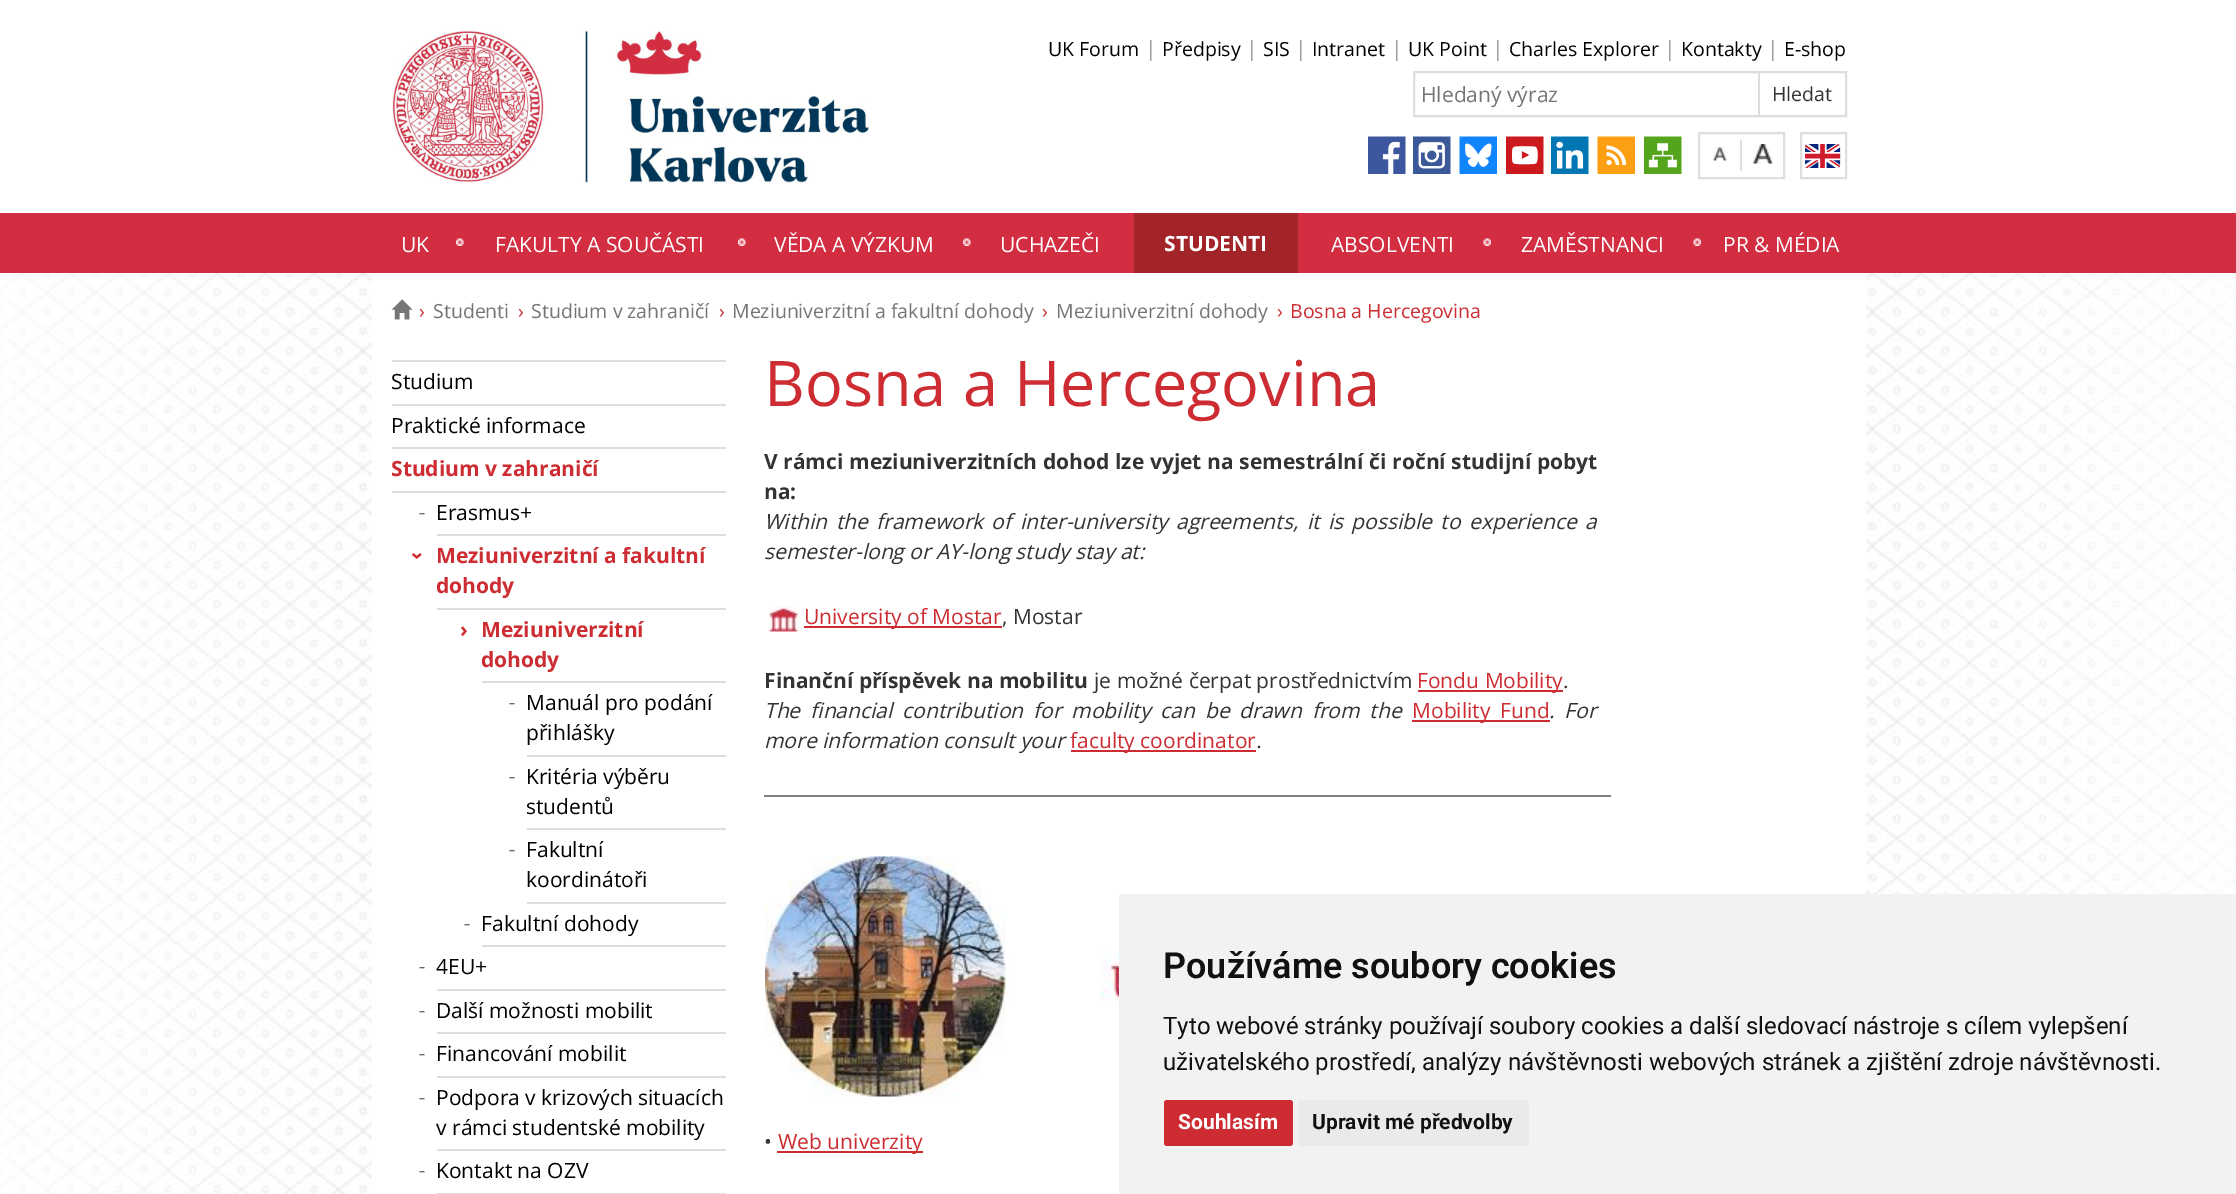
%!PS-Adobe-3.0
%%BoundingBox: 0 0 2236 1194
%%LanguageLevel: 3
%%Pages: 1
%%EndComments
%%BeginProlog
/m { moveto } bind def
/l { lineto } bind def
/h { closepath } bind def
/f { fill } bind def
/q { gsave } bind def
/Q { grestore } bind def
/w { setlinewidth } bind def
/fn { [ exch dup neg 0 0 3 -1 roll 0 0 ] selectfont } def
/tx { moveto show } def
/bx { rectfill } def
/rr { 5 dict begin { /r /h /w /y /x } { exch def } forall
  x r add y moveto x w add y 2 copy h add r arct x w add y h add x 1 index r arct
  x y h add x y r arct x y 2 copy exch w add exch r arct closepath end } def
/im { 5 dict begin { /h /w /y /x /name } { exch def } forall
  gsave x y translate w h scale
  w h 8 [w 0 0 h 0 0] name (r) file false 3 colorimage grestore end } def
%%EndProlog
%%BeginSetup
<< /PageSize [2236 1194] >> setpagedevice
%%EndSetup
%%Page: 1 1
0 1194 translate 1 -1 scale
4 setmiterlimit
1 setgray
0 0 2236 1194 bx
(image0.raw) 0 273 2236 921 im
(image1.raw) 392 31 477 152 im
/OpenSans-Regular 19.5 fn
0 setgray
(UK Forum) 1048 56 tx
/OpenSans-Regular 21 fn
0.627 setgray
(|) 1145 56 tx
/OpenSans-Regular 19.5 fn
0 setgray
(Předpisy) 1162 56 tx
/OpenSans-Regular 21 fn
0.627 setgray
(|) 1246 56 tx
/OpenSans-Regular 19.5 fn
0 setgray
(SIS) 1263 56 tx
/OpenSans-Regular 21 fn
0.627 setgray
(|) 1295 56 tx
/OpenSans-Regular 19.5 fn
0 setgray
(Intranet) 1312 56 tx
/OpenSans-Regular 21 fn
0.627 setgray
(|) 1391 56 tx
/OpenSans-Regular 19.5 fn
0 setgray
(UK Point) 1408 56 tx
/OpenSans-Regular 21 fn
0.627 setgray
(|) 1492 56 tx
/OpenSans-Regular 19.5 fn
0 setgray
(Charles Explorer) 1509 56 tx
/OpenSans-Regular 21 fn
0.627 setgray
(|) 1664 56 tx
/OpenSans-Regular 19.5 fn
0 setgray
(Kontakty) 1681 56 tx
/OpenSans-Regular 21 fn
0.627 setgray
(|) 1767 56 tx
/OpenSans-Regular 19.5 fn
0 setgray
(E-shop) 1784 56 tx
0.871 setgray
2 w
1414 72 432 44 rectstroke
/OpenSans-Regular 21 fn
0.459 setgray
(Hledaný výraz) 1421 102 tx
0.871 setgray
1758 117 m 1758 70 l 1760 72 l 1760 116 l h f
/OpenSans-Regular 19.5 fn
0.2 setgray
(Hledat) 1772 101 tx
(image2.raw) 1368 136 38 38 im
(image3.raw) 1413 136 38 38 im
(image4.raw) 1459 136 38 38 im
(image5.raw) 1506 136 38 38 im
(image6.raw) 1551 136 38 38 im
(image7.raw) 1597 136 38 38 im
(image8.raw) 1644 136 38 38 im
0.871 setgray
1699 133 85 45 rectstroke
(image9.raw) 1713 147 14 14 im
1740 140 2 31 bx
(image10.raw) 1753 144 20 20 im
(image11.raw) 1805 144 36 24 im
1801 133 45 45 rectstroke
0.827 0.176 0.255 setrgbcolor
0 213 2236 60 bx
/OpenSans-Regular 21 fn
1 setgray
(UK) 401 252 tx
(image12.raw) 456 238 8 8 im
(FAKULTY A SOUČÁSTI) 495 252 tx
(image12.raw) 738 238 8 8 im
(VĚDA A VÝZKUM) 774 252 tx
(image13.raw) 963 238 8 8 im
(UCHAZEČI) 1000 252 tx
0.635 0.137 0.157 setrgbcolor
1134 213 164 60 bx
/OpenSans-Bold 21 fn
1 setgray
(STUDENTI) 1164 251 tx
/OpenSans-Regular 21 fn
(ABSOLVENTI) 1331 252 tx
(image14.raw) 1483 238 8 8 im
(ZAMĚSTNANCI) 1521 252 tx
(image15.raw) 1693 238 8 8 im
(PR & MÉDIA) 1723 252 tx
372 273 1494 921 bx
(image16.raw) 391 299 22 21 im
/OpenSans-Regular 19.5 fn
0.8 0.173 0.196 setrgbcolor
(›) 419 318 tx
0.459 setgray
(Studenti) 433 318 tx
0.8 0.173 0.196 setrgbcolor
(›) 518 318 tx
0.459 setgray
(Studium v zahraničí) 531 318 tx
0.8 0.173 0.196 setrgbcolor
(›) 719 318 tx
0.459 setgray
(Meziuniverzitní a fakultní dohody) 732 318 tx
0.8 0.173 0.196 setrgbcolor
(›) 1042 318 tx
0.459 setgray
(Meziuniverzitní dohody) 1056 318 tx
0.8 0.173 0.196 setrgbcolor
(›) 1277 318 tx
(Bosna a Hercegovina) 1290 318 tx
0.871 setgray
392 360 334 2 bx
392 404 334 2 bx
/OpenSans-Regular 21 fn
0 setgray
(Studium) 391 389 tx
0.871 setgray
392 447 334 2 bx
0 setgray
(Praktické informace) 391 433 tx
0.871 setgray
392 491 334 2 bx
/OpenSans-Bold 21 fn
0.8 0.173 0.196 setrgbcolor
(Studium v zahraničí) 391 476 tx
/OpenSans-Regular 12 fn
0.2 setgray
(–) 419 517 tx
0.871 setgray
437 534 289 2 bx
/OpenSans-Regular 21 fn
0 setgray
(Erasmus+) 436 520 tx
/OpenSans-Bold 21 fn
0.8 0.173 0.196 setrgbcolor
q 411 552 translate 90 rotate 0 0 m (›) show Q
0.871 setgray
437 608 289 2 bx
0.8 0.173 0.196 setrgbcolor
(Meziuniverzitní a fakultní) 436 563 tx
(dohody) 436 593 tx
(›) 460 637 tx
0.871 setgray
482 681 244 2 bx
0.8 0.173 0.196 setrgbcolor
(Meziuniverzitní) 481 637 tx
(dohody) 481 667 tx
/OpenSans-Regular 12 fn
0.2 setgray
(–) 509 707 tx
0.871 setgray
527 755 199 2 bx
/OpenSans-Regular 21 fn
0 setgray
(Manuál pro podání) 526 710 tx
(přihlášky) 526 740 tx
/OpenSans-Regular 12 fn
0.2 setgray
(–) 509 781 tx
0.871 setgray
527 828 199 2 bx
/OpenSans-Regular 21 fn
0 setgray
(Kritéria výběru) 526 784 tx
(studentů) 526 814 tx
/OpenSans-Regular 12 fn
0.2 setgray
(–) 509 854 tx
0.871 setgray
527 902 199 2 bx
/OpenSans-Regular 21 fn
0 setgray
(Fakultní) 526 857 tx
(koordinátoři) 526 887 tx
/OpenSans-Regular 12 fn
0.2 setgray
(–) 464 928 tx
0.871 setgray
482 945 244 2 bx
/OpenSans-Regular 21 fn
0 setgray
(Fakultní dohody) 481 931 tx
/OpenSans-Regular 12 fn
0.2 setgray
(–) 419 971 tx
0.871 setgray
437 989 289 2 bx
/OpenSans-Regular 21 fn
0 setgray
(4EU+) 436 974 tx
/OpenSans-Regular 12 fn
0.2 setgray
(–) 419 1015 tx
0.871 setgray
437 1032 289 2 bx
/OpenSans-Regular 21 fn
0 setgray
(Další možnosti mobilit) 436 1018 tx
/OpenSans-Regular 12 fn
0.2 setgray
(–) 419 1058 tx
0.871 setgray
437 1076 289 2 bx
/OpenSans-Regular 21 fn
0 setgray
(Financování mobilit) 436 1061 tx
/OpenSans-Regular 12 fn
0.2 setgray
(–) 419 1102 tx
0.871 setgray
437 1149 289 2 bx
/OpenSans-Regular 21 fn
0 setgray
(Podpora v krizových situacích) 436 1105 tx
(v rámci studentské mobility) 436 1135 tx
/OpenSans-Regular 12 fn
0.2 setgray
(–) 419 1175 tx
0.871 setgray
437 1193 289 1 bx
/OpenSans-Regular 21 fn
0 setgray
(Kontakt na OZV) 436 1178 tx
/OpenSans-Regular 63 fn
0.8 0.173 0.196 setrgbcolor
(Bosna a Hercegovina) 764 406 tx
/OpenSans-Bold 21 fn
0.2 setgray
(V rámci) 764 469 tx
849 469 m 0.25 0 32 (meziuniverzitních dohod lze vyjet na semestrální či roční studijní pobyt) widthshow
(na:) 764 499 tx
/OpenSans-Italic 21 fn
764 529 m 2.9 0 32 (Within the framework of inter-university agreements, it is possible to experience a) widthshow
(semester-long or AY-long study stay at:) 764 559 tx
(image17.raw) 769 606 31 26 im
0.8 0.173 0.196 setrgbcolor
804 626 198 2 bx
/OpenSans-Regular 21 fn
(University of Mostar) 804 624 tx
0.2 setgray
(, Mostar) 1002 624 tx
/OpenSans-Bold 21 fn
(Finanční příspěvek na mobilitu) 764 688 tx
/OpenSans-Regular 21 fn
(je možné čerpat prostřednictvím) 1094 688 tx
0.8 0.173 0.196 setrgbcolor
1418 690 145 2 bx
(Fondu Mobility) 1417 688 tx
0.2 setgray
(.) 1563 688 tx
/OpenSans-Italic 21 fn
764 718 m 4.5 0 32 (The financial contribution for mobility can be drawn from the) widthshow
0.8 0.173 0.196 setrgbcolor
1412 720 138 2 bx
/OpenSans-Regular 21 fn
1412 718 m 4.5 0 32 (Mobility Fund) widthshow
/OpenSans-Italic 21 fn
0.2 setgray
1549 718 m 4.5 0 32 (. For) widthshow
(more information consult your) 764 748 tx
0.8 0.173 0.196 setrgbcolor
1071 750 185 2 bx
/OpenSans-Regular 21 fn
(faculty coordinator) 1070 748 tx
/OpenSans-Italic 21 fn
0.2 setgray
(.) 1256 748 tx
0.502 setgray
764 795 847 2 bx
(image18.raw) 765 856 769 241 im
/OpenSans-Regular 21 fn
0.2 setgray
(•) 764 1149 tx
0.8 0.173 0.196 setrgbcolor
777 1151 146 2 bx
(Web univerzity) 778 1149 tx
0.949 setgray
1119 894 1117 300 bx
/Roboto-SemiBold 36 fn
0.067 setgray
(Používáme soubory cookies) 1163 978 tx
/Roboto-Regular 24 fn
(Tyto webové stránky používají soubory cookies a další sledovací nástroje s cílem vylepšení) 1163 1034 tx
(uživatelského prostředí, analýzy návštěvnosti webových stránek a zjištění zdroje návštěvnosti.) 1163 1070 tx
0.8 0.173 0.196 setrgbcolor
1164 1100 129 46 3 rr f
/Roboto-Bold 21 fn
1 setgray
(Souhlasím) 1178 1129 tx
0.918 setgray
1298 1100 231 46 3 rr f
0.067 setgray
(Upravit mé předvolby) 1312 1129 tx
showpage
%%EOF
